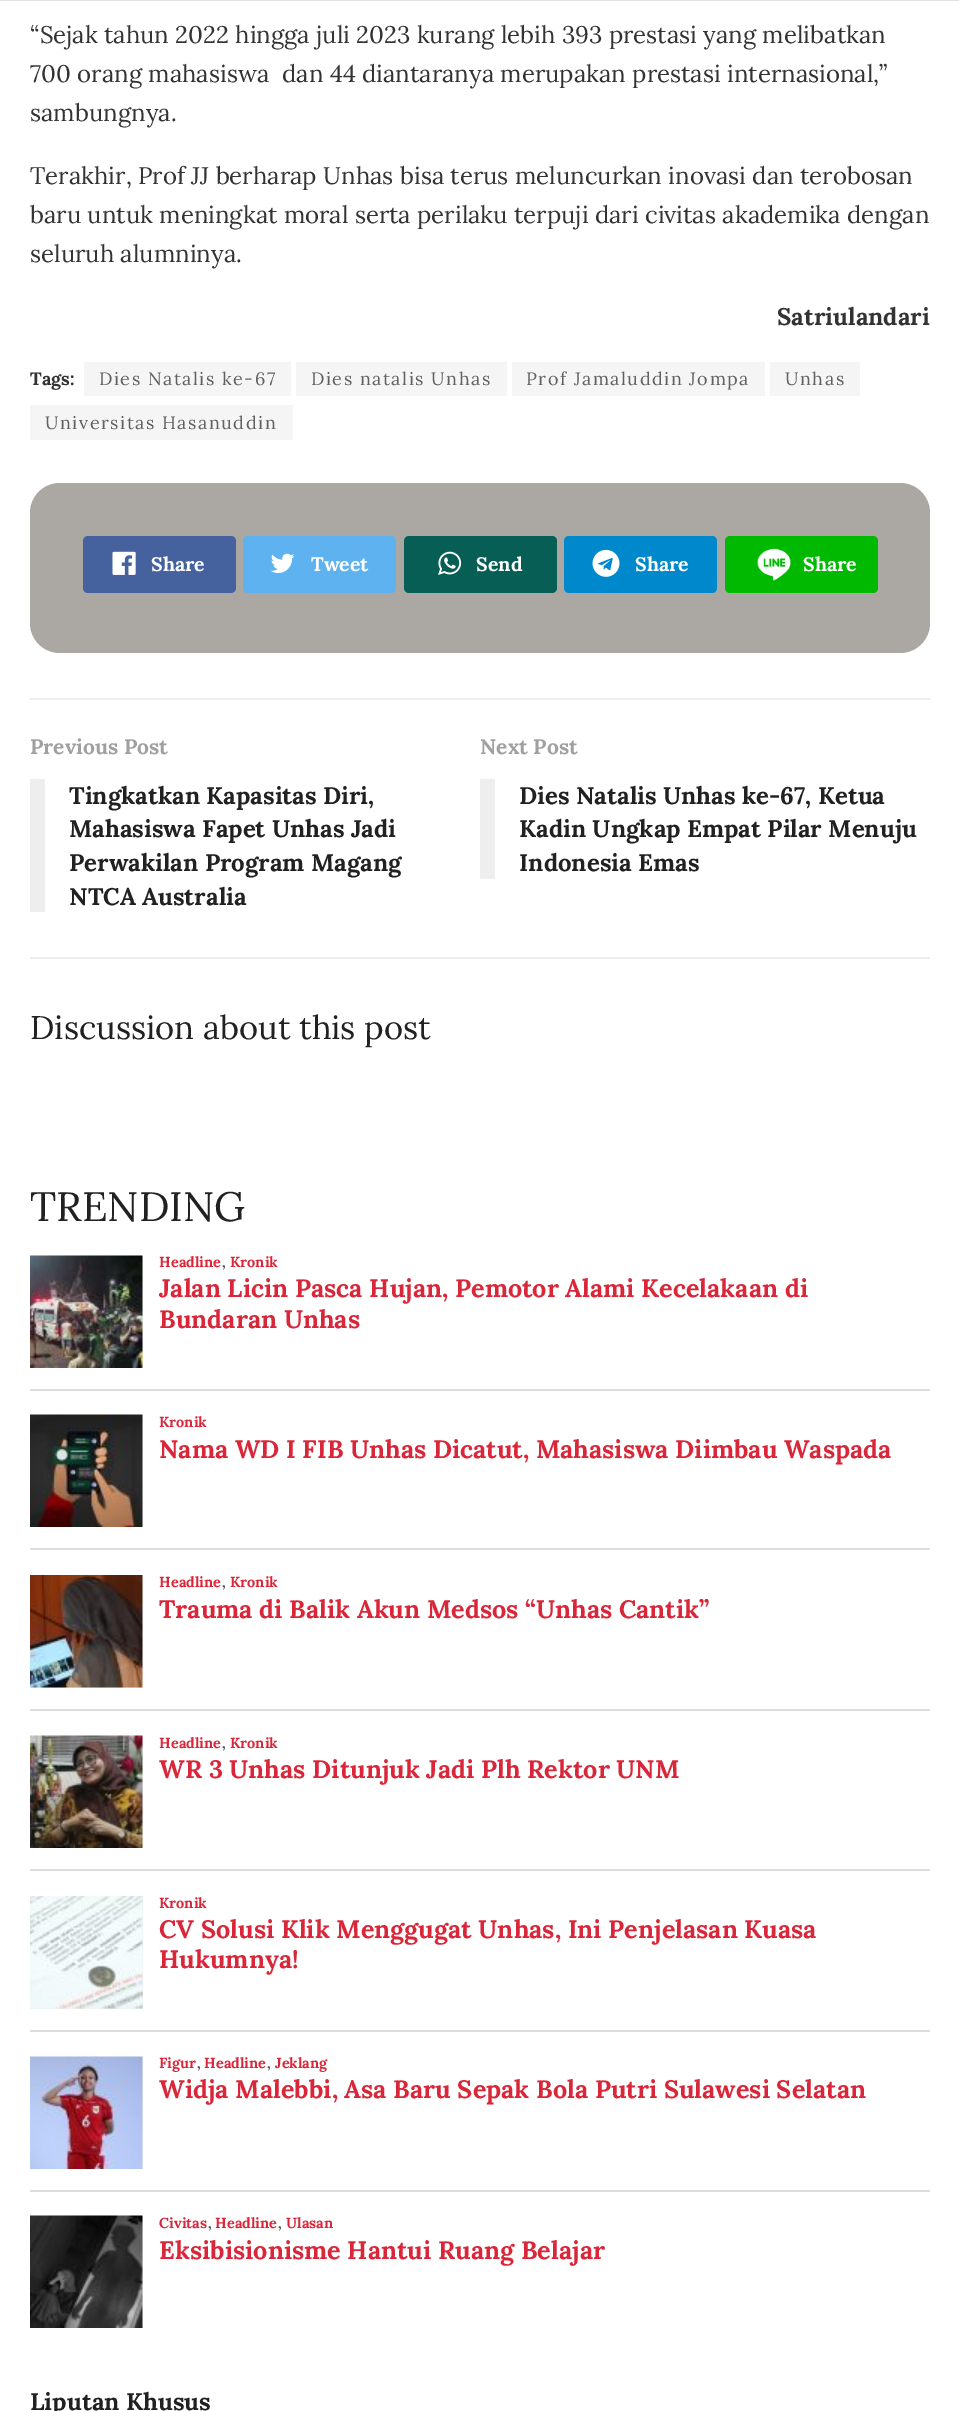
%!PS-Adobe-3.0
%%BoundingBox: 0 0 959 2411
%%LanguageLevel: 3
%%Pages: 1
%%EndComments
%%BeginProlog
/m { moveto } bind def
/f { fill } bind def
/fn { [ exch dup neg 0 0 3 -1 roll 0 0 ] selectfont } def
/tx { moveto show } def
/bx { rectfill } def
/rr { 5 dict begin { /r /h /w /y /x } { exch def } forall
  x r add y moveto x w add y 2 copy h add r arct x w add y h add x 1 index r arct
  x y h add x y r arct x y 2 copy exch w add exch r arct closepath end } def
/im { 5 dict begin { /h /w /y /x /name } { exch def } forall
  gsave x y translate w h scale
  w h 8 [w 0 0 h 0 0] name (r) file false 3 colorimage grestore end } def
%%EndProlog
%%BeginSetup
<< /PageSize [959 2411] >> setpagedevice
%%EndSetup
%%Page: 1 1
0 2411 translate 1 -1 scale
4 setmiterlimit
1 setgray
0 0 959 2411 bx
0.886 setgray
0 0 959 1 bx
/Lora-Regular 24 fn
0.2 setgray
(“Sejak tahun 2022 hingga juli 2023 kurang lebih 393 prestasi yang melibatkan) 30 43 tx
(700 orang mahasiswa  dan 44 diantaranya merupakan prestasi internasional,”) 30 82 tx
(sambungnya.) 30 121 tx
(Terakhir, Prof JJ berharap Unhas bisa terus meluncurkan inovasi dan terobosan) 30 184 tx
(baru untuk meningkat moral serta perilaku terpuji dari civitas akademika dengan) 30 223 tx
(seluruh alumninya.) 30 262 tx
/Lora-Bold 24 fn
(Satriulandari) 777 325 tx
/Lora-Bold 18 fn
(Tags:) 30 385 tx
0.961 setgray
84 362 207 34 bx
/Lora-Regular 18 fn
0.38 setgray
99 385 m 1.5 0 (Dies Natalis ke-67) ashow
0.961 setgray
296 362 211 34 bx
0.38 setgray
311 385 m 1.5 0 (Dies natalis Unhas) ashow
0.961 setgray
512 362 253 34 bx
0.38 setgray
526 385 m 1.5 0 (Prof Jamaluddin Jompa) ashow
0.961 setgray
770 362 90 34 bx
0.38 setgray
785 385 m 1.5 0 (Unhas) ashow
0.961 setgray
30 405 263 35 bx
0.38 setgray
45 429 m 1.5 0 (Universitas Hasanuddin) ashow
0.671 0.655 0.635 setrgbcolor
30 483 900 170 30 rr f
0.271 0.384 0.624 setrgbcolor
83 536 153 57 5 rr f
(image0.raw) 112 551 24 24 im
/Lora-Bold 19.5 fn
1 setgray
(Share) 151 571 tx
0.369 0.698 0.937 setrgbcolor
243 536 153 57 5 rr f
(image1.raw) 270 553 25 20 im
1 setgray
(Tweet) 311 571 tx
0.027 0.369 0.329 setrgbcolor
404 536 153 57 5 rr f
(image2.raw) 438 551 24 24 im
1 setgray
(Send) 476 571 tx
0 0.533 0.8 setrgbcolor
564 536 153 57 5 rr f
(image3.raw) 592 549 28 28 im
1 setgray
(Share) 635 571 tx
0 0.725 0 setrgbcolor
725 536 153 57 5 rr f
(image4.raw) 757 548 34 33 im
1 setgray
(Share) 803 571 tx
0.933 setgray
30 698 900 2 bx
30 957 900 2 bx
/Lora-Bold 21 fn
0.627 setgray
(Previous Post) 30 754 tx
0.933 setgray
30 779 15 133 bx
/Lora-Bold 24 fn
0.129 setgray
(Tingkatkan Kapasitas Diri,) 69 804 tx
(Mahasiswa Fapet Unhas Jadi) 69 837 tx
(Perwakilan Program Magang) 69 871 tx
(NTCA Australia) 69 905 tx
/Lora-Bold 21 fn
0.627 setgray
(Next Post) 480 754 tx
0.933 setgray
480 779 15 100 bx
/Lora-Bold 24 fn
0.129 setgray
(Dies Natalis Unhas ke-67, Ketua) 519 804 tx
(Kadin Ungkap Empat Pilar Menuju) 519 837 tx
(Indonesia Emas) 519 871 tx
/Lora-Regular 32.75 fn
(Discussion about this post) 30 1039 tx
/Lora-Regular 41 fn
(TRENDING) 30 1221 tx
0.867 setgray
30 1389 900 2 bx
0.941 setgray
142 1256 1 112 bx
(image5.raw) 30 1255 113 113 im
/Lora-Bold 14.5 fn
0.851 0.149 0.224 setrgbcolor
(Headline) 159 1267 tx
0.325 0.345 0.361 setrgbcolor
(,) 222 1267 tx
0.851 0.149 0.224 setrgbcolor
(Kronik) 230 1267 tx
/Lora-Bold 25.2 fn
(Jalan Licin Pasca Hujan, Pemotor Alami Kecelakaan di) 159 1297 tx
(Bundaran Unhas) 159 1328 tx
0.867 setgray
30 1548 900 2 bx
0.941 setgray
142 1415 1 112 bx
(image6.raw) 30 1414 113 113 im
/Lora-Bold 14.5 fn
0.851 0.149 0.224 setrgbcolor
(Kronik) 159 1427 tx
/Lora-Bold 25.2 fn
(Nama WD I FIB Unhas Dicatut, Mahasiswa Diimbau Waspada) 159 1458 tx
0.867 setgray
30 1709 900 2 bx
0.941 setgray
30 1575 113 113 bx
(image7.raw) 30 1575 113 113 im
/Lora-Bold 14.5 fn
0.851 0.149 0.224 setrgbcolor
(Headline) 159 1587 tx
0.325 0.345 0.361 setrgbcolor
(,) 222 1587 tx
0.851 0.149 0.224 setrgbcolor
(Kronik) 230 1587 tx
/Lora-Bold 25.2 fn
(Trauma di Balik Akun Medsos “Unhas Cantik”) 159 1618 tx
0.867 setgray
30 1869 900 2 bx
0.941 setgray
142 1736 1 112 bx
(image8.raw) 30 1735 113 113 im
/Lora-Bold 14.5 fn
0.851 0.149 0.224 setrgbcolor
(Headline) 159 1748 tx
0.325 0.345 0.361 setrgbcolor
(,) 222 1748 tx
0.851 0.149 0.224 setrgbcolor
(Kronik) 230 1748 tx
/Lora-Bold 25.2 fn
(WR 3 Unhas Ditunjuk Jadi Plh Rektor UNM) 159 1778 tx
0.867 setgray
30 2030 900 2 bx
0.941 setgray
30 1896 113 113 bx
(image9.raw) 30 1896 113 113 im
/Lora-Bold 14.5 fn
0.851 0.149 0.224 setrgbcolor
(Kronik) 159 1908 tx
/Lora-Bold 25.2 fn
(CV Solusi Klik Menggugat Unhas, Ini Penjelasan Kuasa) 159 1938 tx
(Hukumnya!) 159 1968 tx
0.867 setgray
30 2190 900 2 bx
0.941 setgray
142 2057 1 112 bx
(image10.raw) 30 2056 113 113 im
/Lora-Bold 14.5 fn
0.851 0.149 0.224 setrgbcolor
(Figur) 159 2068 tx
0.325 0.345 0.361 setrgbcolor
(,) 197 2068 tx
0.851 0.149 0.224 setrgbcolor
(Headline) 204 2068 tx
0.325 0.345 0.361 setrgbcolor
(,) 267 2068 tx
0.851 0.149 0.224 setrgbcolor
(Jeklang) 275 2068 tx
/Lora-Bold 25.2 fn
(Widja Malebbi, Asa Baru Sepak Bola Putri Sulawesi Selatan) 159 2098 tx
0.941 setgray
142 2216 1 112 bx
(image11.raw) 30 2215 113 113 im
/Lora-Bold 14.5 fn
0.851 0.149 0.224 setrgbcolor
(Civitas) 159 2228 tx
0.325 0.345 0.361 setrgbcolor
(,) 208 2228 tx
0.851 0.149 0.224 setrgbcolor
(Headline) 215 2228 tx
0.325 0.345 0.361 setrgbcolor
(,) 278 2228 tx
0.851 0.149 0.224 setrgbcolor
(Ulasan) 286 2228 tx
/Lora-Bold 25.2 fn
(Eksibisionisme Hantui Ruang Belajar) 159 2259 tx
/Lora-Bold 24 fn
0.129 setgray
(Liputan Khusus) 30 2410 tx
showpage
%%EOF
